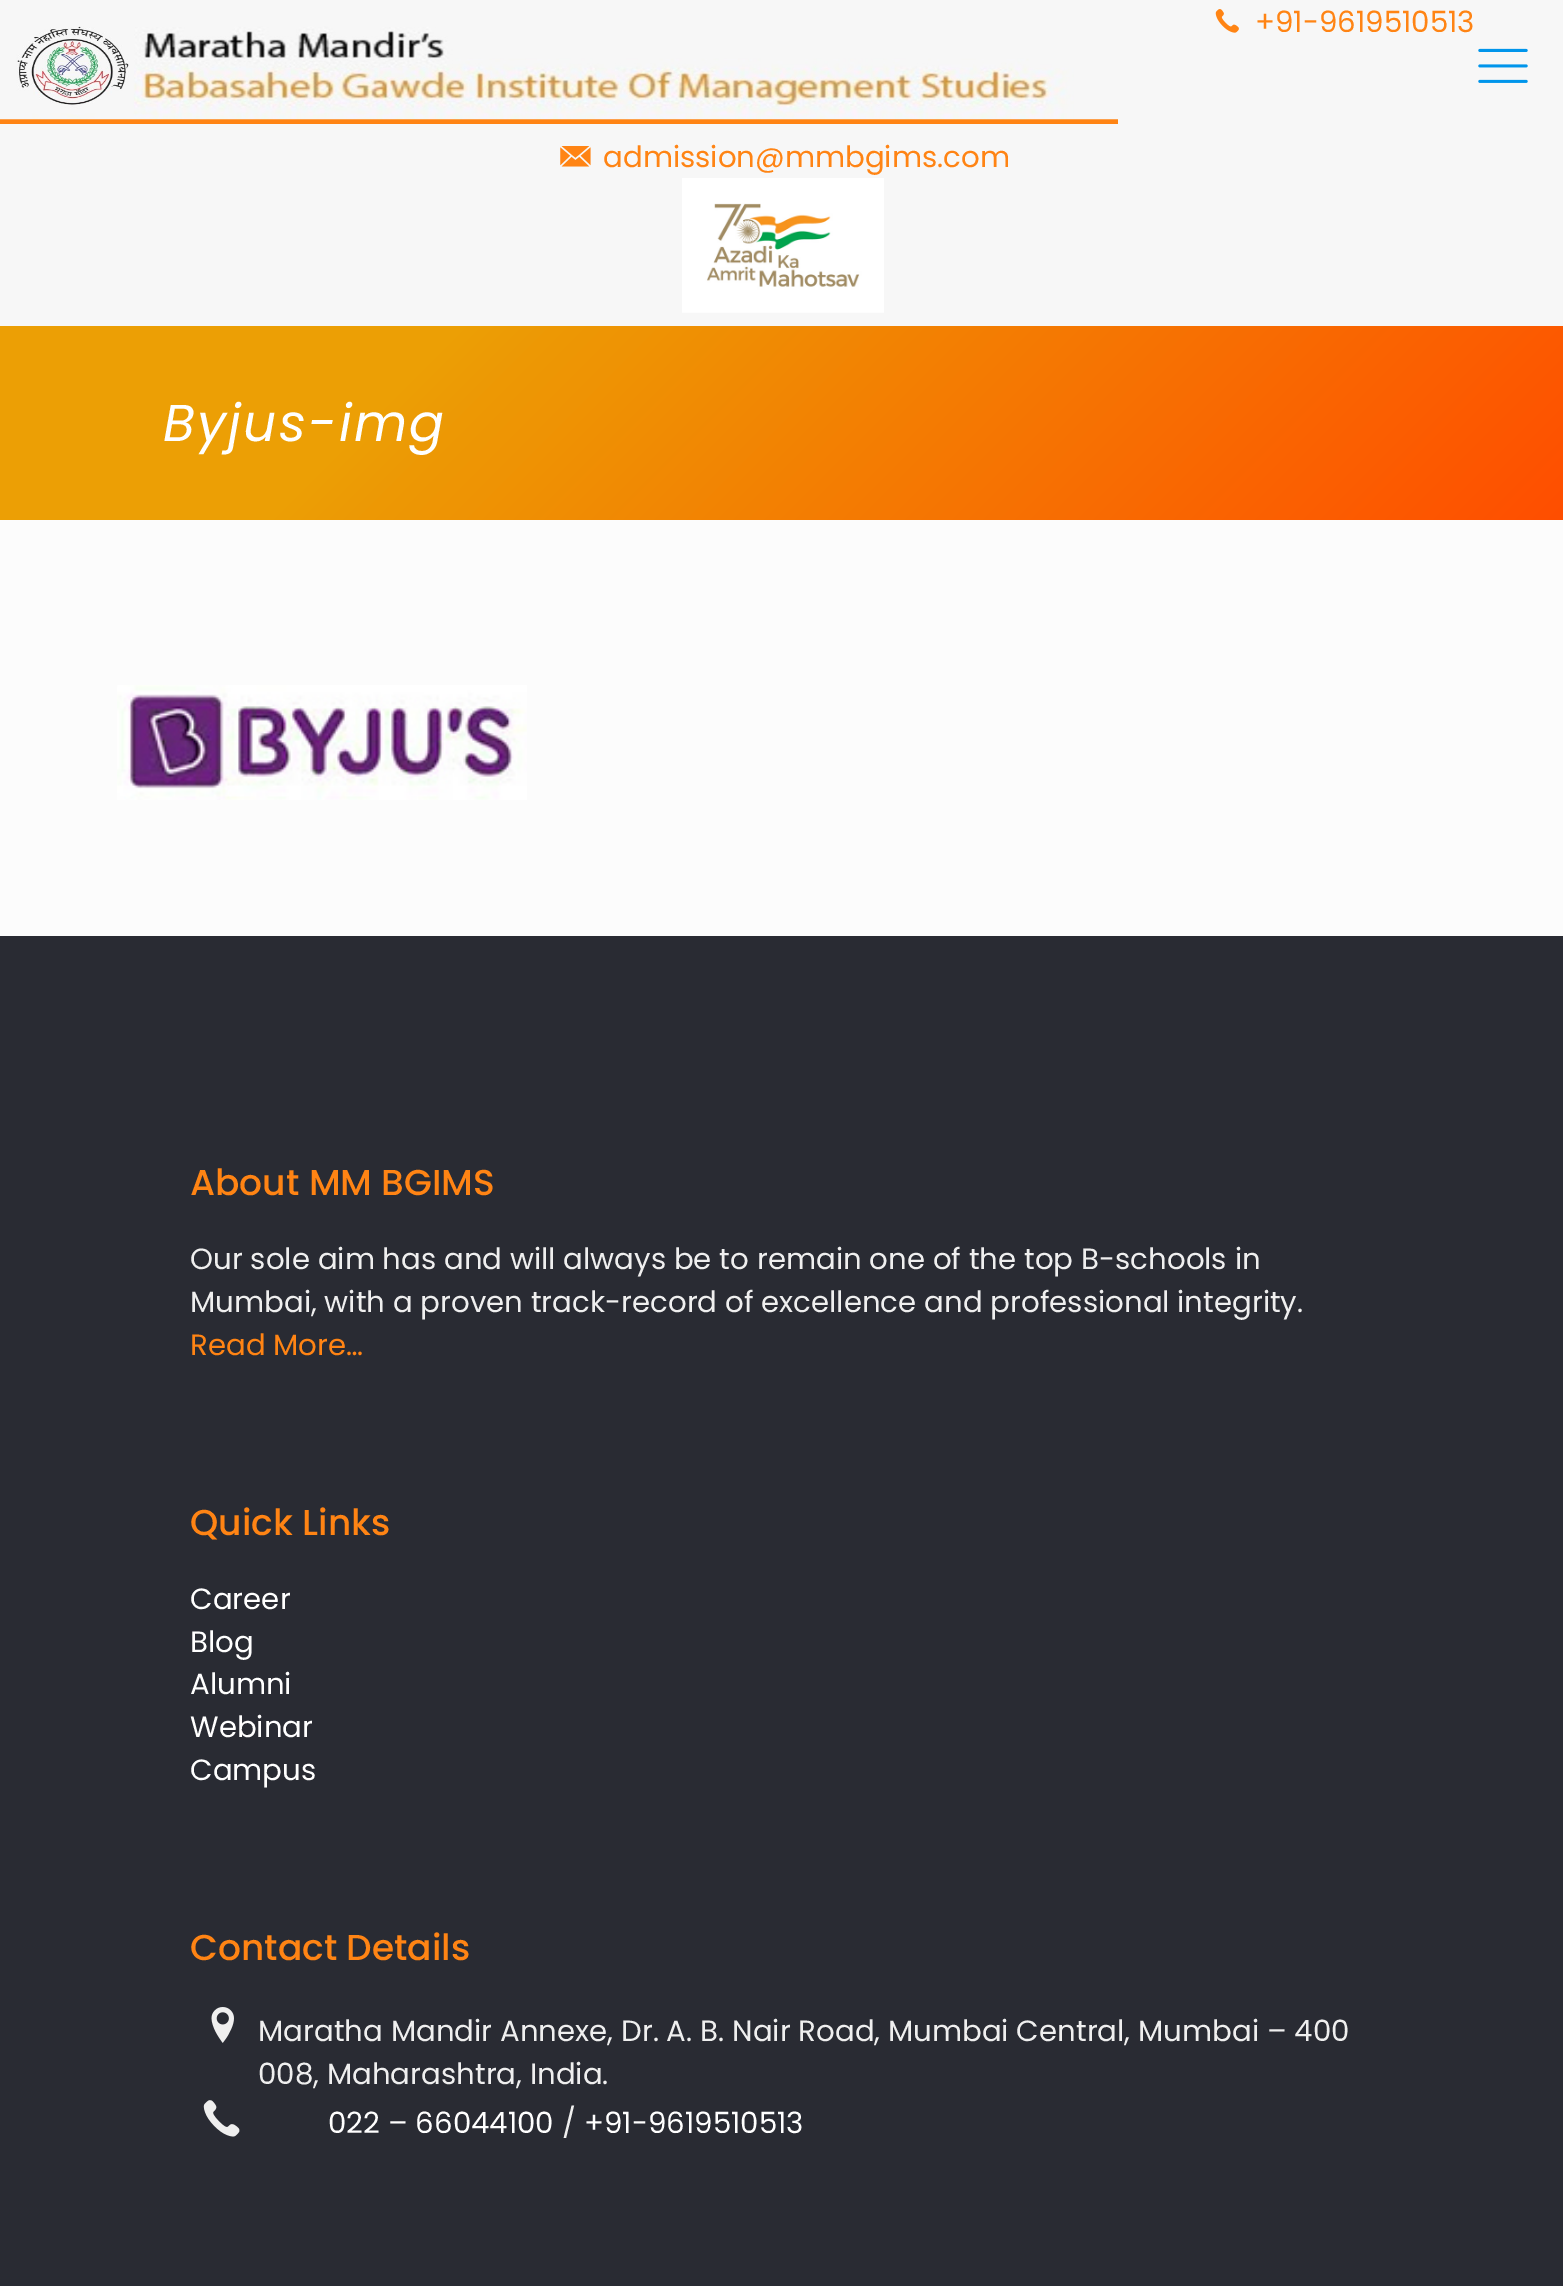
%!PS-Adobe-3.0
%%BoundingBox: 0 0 1563 2286
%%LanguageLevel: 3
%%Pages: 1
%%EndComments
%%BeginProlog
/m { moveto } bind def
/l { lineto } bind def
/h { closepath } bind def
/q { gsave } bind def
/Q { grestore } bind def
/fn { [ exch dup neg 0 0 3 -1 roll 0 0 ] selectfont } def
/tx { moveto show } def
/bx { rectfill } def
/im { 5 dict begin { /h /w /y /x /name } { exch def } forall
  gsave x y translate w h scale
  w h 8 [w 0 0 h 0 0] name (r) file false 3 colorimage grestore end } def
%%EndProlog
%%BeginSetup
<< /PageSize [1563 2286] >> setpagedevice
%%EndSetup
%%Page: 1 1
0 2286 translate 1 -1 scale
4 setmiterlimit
0.988 setgray
0 0 1563 2286 bx
0.969 setgray
0 0 1563 326 bx
(image0.raw) 1215 9 24 24 im
/Poppins-Regular 29.25 fn
1 0.518 0.078 setrgbcolor
(+91-9619510513) 1255 32 tx
(image1.raw) 560 146 31 21 im
(admission@mmbgims.com) 603 167 tx
(image2.raw) 682 178 202 135 im
0 119 1118 5 bx
(image3.raw) 0 26 1118 94 im
(image4.raw) 1478 48 50 35 im
q 0 326 m 1563 326 l 1563 520 l 0 520 l h clip newpath
<< /ShadingType 2 /ColorSpace /DeviceRGB /Coords [1221 862 343 -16] /Extend [true true] /Function << /FunctionType 3 /Domain [0 1] /Functions [<< /FunctionType 2 /Domain [0 1] /C0 [1 0.306 0] /C1 [0.925 0.624 0.02] /N 1 >> << /FunctionType 2 /Domain [0 1] /C0 [0.925 0.624 0.02] /C1 [0.925 0.624 0.02] /N 1 >>] /Bounds [0.74] /Encode [0 1 0 1] >> >> shfill Q
/Poppins-Italic 51.75 fn
1 setgray
163 441 m 2.25 0 (Byjus-img) ashow
(image5.raw) 117 685 410 115 im
0.161 0.169 0.2 setrgbcolor
0 936 1563 1350 bx
/Poppins-Medium 36 fn
1 0.518 0.078 setrgbcolor
(About MM BGIMS) 190 1195 tx
/Poppins-Regular 29.25 fn
0.937 setgray
(Our sole aim has and will always be to remain one of the top B-schools in) 190 1269 tx
(Mumbai, with a proven track-record of excellence and professional integrity.) 190 1312 tx
1 0.518 0.078 setrgbcolor
(Read More…) 190 1355 tx
/Poppins-Medium 36 fn
(Quick Links) 190 1535 tx
/Poppins-Regular 29.25 fn
1 setgray
(Career) 190 1609 tx
(Blog) 190 1652 tx
(Alumni) 190 1694 tx
(Webinar) 190 1737 tx
(Campus) 190 1780 tx
/Poppins-Medium 36 fn
1 0.518 0.078 setrgbcolor
(Contact Details) 190 1960 tx
(image6.raw) 211 2007 23 36 im
/Poppins-Regular 29.25 fn
0.937 setgray
(Maratha Mandir Annexe, Dr. A. B. Nair Road, Mumbai Central, Mumbai – 400) 258 2041 tx
(008, Maharashtra, India.) 258 2084 tx
(image7.raw) 203 2100 37 37 im
1 setgray
(022 – 66044100) 328 2133 tx
0.937 setgray
(/) 562 2133 tx
1 setgray
(+91-9619510513) 584 2133 tx
showpage
%%EOF
